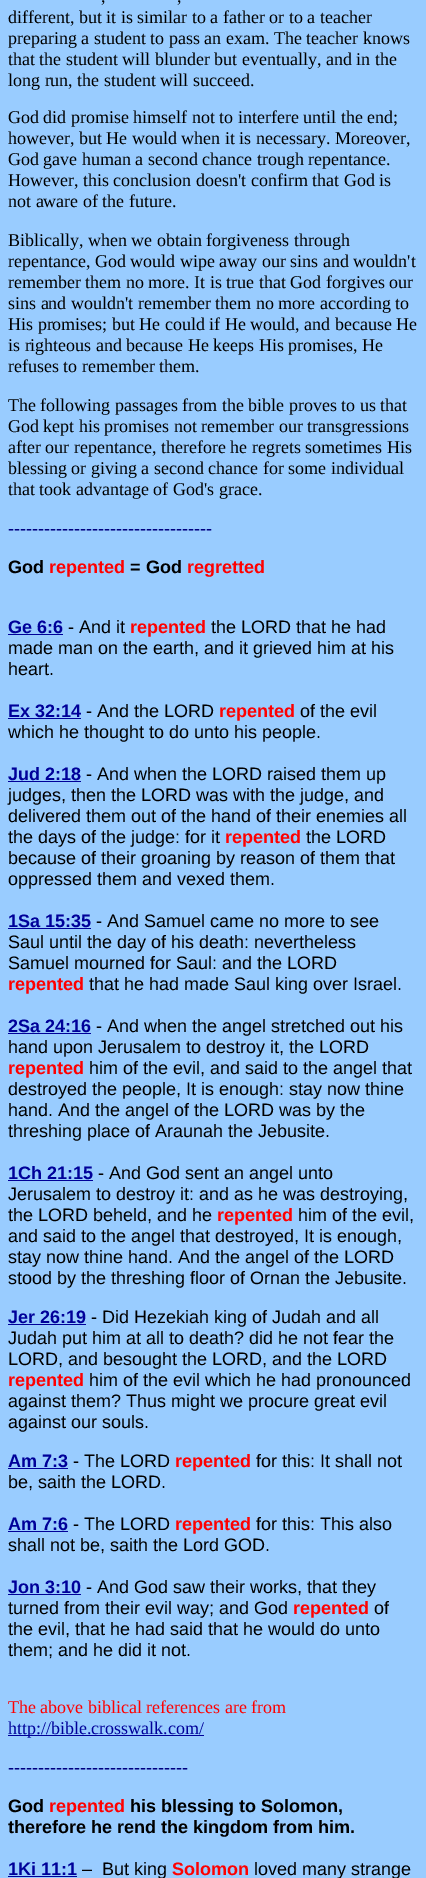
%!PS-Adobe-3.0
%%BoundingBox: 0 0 426 1878
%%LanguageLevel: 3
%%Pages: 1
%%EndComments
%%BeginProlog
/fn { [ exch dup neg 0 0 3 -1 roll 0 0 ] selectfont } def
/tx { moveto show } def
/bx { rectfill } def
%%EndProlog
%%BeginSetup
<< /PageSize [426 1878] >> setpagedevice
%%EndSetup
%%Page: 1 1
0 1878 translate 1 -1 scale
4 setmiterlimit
0.6 0.8 1 setrgbcolor
0 0 426 1878 bx
/LiberationSerif-Regular 18 fn
0 setgray
(,) 101 2 tx
(,) 177 2 tx
(different, but it is similar to a father or to a teacher) 8 23 tx
(preparing a student to pass an exam. The teacher knows) 8 44 tx
(that the student will blunder but eventually, and in the) 8 65 tx
(long run, the student will succeed.) 8 86 tx
(God did promise himself not to interfere until the end;) 8 123 tx
(however, but He would when it is necessary. Moreover,) 8 144 tx
(God gave human a second chance trough repentance.) 8 165 tx
(However, this conclusion doesn't confirm that God is) 8 186 tx
(not aware of the future.) 8 207 tx
(Biblically, when we obtain forgiveness through) 8 246 tx
(repentance, God would wipe away our sins and wouldn't) 8 267 tx
(remember them no more. It is true that God forgives our) 8 288 tx
(sins and wouldn't remember them no more according to) 8 309 tx
(His promises; but He could if He would, and because He) 8 330 tx
(is righteous and because He keeps His promises, He) 8 351 tx
(refuses to remember them.) 8 372 tx
(The following passages from the bible proves to us that) 8 411 tx
(God kept his promises not remember our transgressions) 8 432 tx
(after our repentance, therefore he regrets sometimes His) 8 453 tx
(blessing or giving a second chance for some individual) 8 474 tx
(that took advantage of God's grace.) 8 495 tx
0 0 0.502 setrgbcolor
(----------------------------------) 8 534 tx
/LiberationSans-Bold 18 fn
0 setgray
(God) 8 573 tx
1 0 0 setrgbcolor
(repented) 49 573 tx
0 setgray
(= God) 130 573 tx
1 0 0 setrgbcolor
(regretted) 187 573 tx
0 0 0.6 setrgbcolor
(Ge 6:6) 8 633 tx
8 634 55 1 bx
/LiberationSans-Regular 18 fn
0 setgray
(- And it) 68 633 tx
/LiberationSans-Bold 18 fn
1 0 0 setrgbcolor
(repented) 130 633 tx
/LiberationSans-Regular 18 fn
0 setgray
(the LORD that he had) 211 633 tx
(made man on the earth, and it grieved him at his) 8 654 tx
(heart.) 8 675 tx
/LiberationSans-Bold 18 fn
0 0 0.6 setrgbcolor
(Ex 32:14) 8 717 tx
8 718 73 1 bx
/LiberationSans-Regular 18 fn
0 setgray
(- And the LORD) 86 717 tx
/LiberationSans-Bold 18 fn
1 0 0 setrgbcolor
(repented) 219 717 tx
/LiberationSans-Regular 18 fn
0 setgray
(of the evil) 300 717 tx
(which he thought to do unto his people.) 8 738 tx
/LiberationSans-Bold 18 fn
0 0 0.6 setrgbcolor
(Jud 2:18) 8 780 tx
8 781 73 1 bx
/LiberationSans-Regular 18 fn
0 setgray
(- And when the LORD raised them up) 86 780 tx
(judges, then the LORD was with the judge, and) 8 801 tx
(delivered them out of the hand of their enemies all) 8 822 tx
(the days of the judge: for it) 8 843 tx
/LiberationSans-Bold 18 fn
1 0 0 setrgbcolor
(repented) 225 843 tx
/LiberationSans-Regular 18 fn
0 setgray
(the LORD) 306 843 tx
(because of their groaning by reason of them that) 8 864 tx
(oppressed them and vexed them.) 8 885 tx
/LiberationSans-Bold 18 fn
0 0 0.6 setrgbcolor
(1Sa 15:35) 8 927 tx
8 928 83 1 bx
/LiberationSans-Regular 18 fn
0 setgray
(- And Samuel came no more to see) 96 927 tx
(Saul until the day of his death: nevertheless) 8 948 tx
(Samuel mourned for Saul: and the LORD) 8 969 tx
/LiberationSans-Bold 18 fn
1 0 0 setrgbcolor
(repented) 8 990 tx
/LiberationSans-Regular 18 fn
0 setgray
(that he had made Saul king over Israel.) 89 990 tx
/LiberationSans-Bold 18 fn
0 0 0.6 setrgbcolor
(2Sa 24:16) 8 1032 tx
8 1033 83 1 bx
/LiberationSans-Regular 18 fn
0 setgray
(- And when the angel stretched out his) 96 1032 tx
(hand upon Jerusalem to destroy it, the LORD) 8 1053 tx
/LiberationSans-Bold 18 fn
1 0 0 setrgbcolor
(repented) 8 1074 tx
/LiberationSans-Regular 18 fn
0 setgray
(him of the evil, and said to the angel that) 89 1074 tx
(destroyed the people, It is enough: stay now thine) 8 1095 tx
(hand. And the angel of the LORD was by the) 8 1116 tx
(threshing place of Araunah the Jebusite.) 8 1137 tx
/LiberationSans-Bold 18 fn
0 0 0.6 setrgbcolor
(1Ch 21:15) 8 1179 tx
8 1180 85 1 bx
/LiberationSans-Regular 18 fn
0 setgray
(- And God sent an angel unto) 98 1179 tx
(Jerusalem to destroy it: and as he was destroying,) 8 1200 tx
(the LORD beheld, and he) 8 1221 tx
/LiberationSans-Bold 18 fn
1 0 0 setrgbcolor
(repented) 217 1221 tx
/LiberationSans-Regular 18 fn
0 setgray
(him of the evil,) 298 1221 tx
(and said to the angel that destroyed, It is enough,) 8 1242 tx
(stay now thine hand. And the angel of the LORD) 8 1263 tx
(stood by the threshing floor of Ornan the Jebusite.) 8 1284 tx
/LiberationSans-Bold 18 fn
0 0 0.6 setrgbcolor
(Jer 26:19) 8 1323 tx
8 1324 78 1 bx
/LiberationSans-Regular 18 fn
0 setgray
(- Did Hezekiah king of Judah and all) 91 1323 tx
(Judah put him at all to death? did he not fear the) 8 1344 tx
(LORD, and besought the LORD, and the LORD) 8 1365 tx
/LiberationSans-Bold 18 fn
1 0 0 setrgbcolor
(repented) 8 1386 tx
/LiberationSans-Regular 18 fn
0 setgray
(him of the evil which he had pronounced) 89 1386 tx
(against them? Thus might we procure great evil) 8 1407 tx
(against our souls.) 8 1428 tx
/LiberationSans-Bold 18 fn
0 0 0.6 setrgbcolor
(Am 7:3) 8 1467 tx
8 1468 60 1 bx
/LiberationSans-Regular 18 fn
0 setgray
(- The LORD) 73 1467 tx
/LiberationSans-Bold 18 fn
1 0 0 setrgbcolor
(repented) 175 1467 tx
/LiberationSans-Regular 18 fn
0 setgray
(for this: It shall not) 256 1467 tx
(be, saith the LORD.) 8 1488 tx
/LiberationSans-Bold 18 fn
0 0 0.6 setrgbcolor
(Am 7:6) 8 1530 tx
8 1531 60 1 bx
/LiberationSans-Regular 18 fn
0 setgray
(- The LORD) 73 1530 tx
/LiberationSans-Bold 18 fn
1 0 0 setrgbcolor
(repented) 175 1530 tx
/LiberationSans-Regular 18 fn
0 setgray
(for this: This also) 256 1530 tx
(shall not be, saith the Lord GOD.) 8 1551 tx
/LiberationSans-Bold 18 fn
0 0 0.6 setrgbcolor
(Jon 3:10) 8 1593 tx
8 1594 73 1 bx
/LiberationSans-Regular 18 fn
0 setgray
(- And God saw their works, that they) 86 1593 tx
(turned from their evil way; and God) 8 1614 tx
/LiberationSans-Bold 18 fn
1 0 0 setrgbcolor
(repented) 293 1614 tx
/LiberationSans-Regular 18 fn
0 setgray
(of) 374 1614 tx
(the evil, that he had said that he would do unto) 8 1635 tx
(them; and he did it not.) 8 1656 tx
/LiberationSerif-Regular 18 fn
1 0 0 setrgbcolor
(The above biblical references are from) 8 1713 tx
0 0 0.6 setrgbcolor
8 1735 196 1 bx
(http://bible.crosswalk.com/) 8 1734 tx
0 0 0.502 setrgbcolor
(------------------------------) 8 1773 tx
/LiberationSans-Bold 18 fn
0 setgray
(God) 8 1812 tx
1 0 0 setrgbcolor
(repented) 49 1812 tx
0 setgray
(his blessing to Solomon,) 130 1812 tx
(therefore he rend the kingdom from him.) 8 1833 tx
0 0 0.6 setrgbcolor
(1Ki 11:1) 8 1875 tx
8 1876 69 1 bx
/LiberationSans-Regular 18 fn
0 setgray
(–  But king) 82 1875 tx
/LiberationSans-Bold 18 fn
1 0 0 setrgbcolor
(Solomon) 172 1875 tx
/LiberationSans-Regular 18 fn
0 setgray
(loved many strange) 254 1875 tx
showpage
%%EOF
